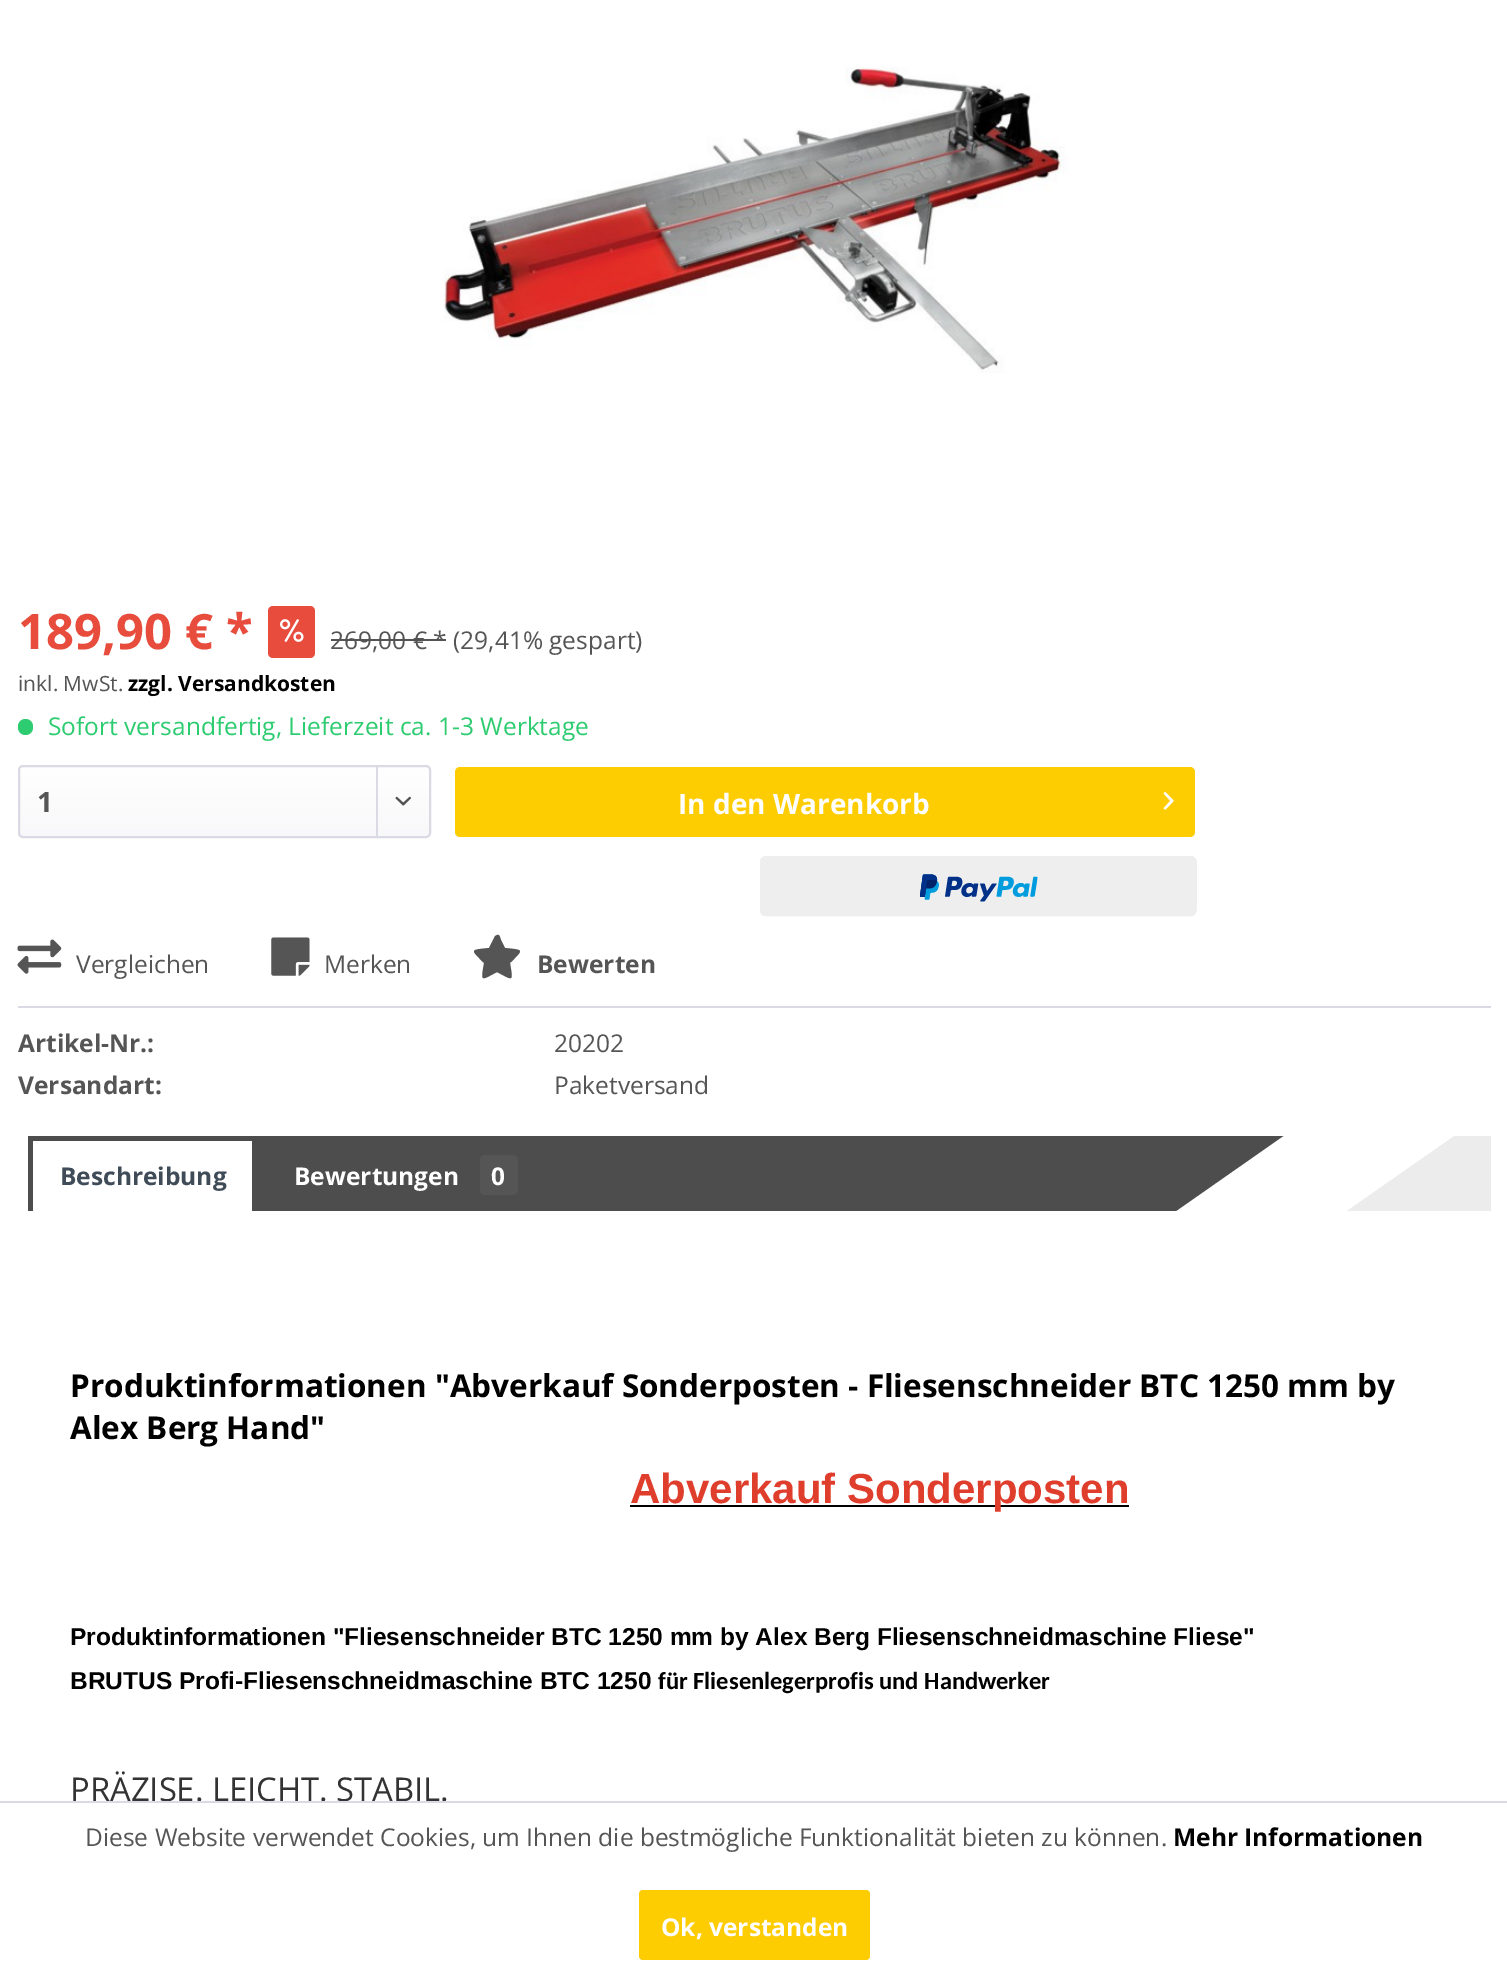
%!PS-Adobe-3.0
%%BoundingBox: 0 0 1507 1979
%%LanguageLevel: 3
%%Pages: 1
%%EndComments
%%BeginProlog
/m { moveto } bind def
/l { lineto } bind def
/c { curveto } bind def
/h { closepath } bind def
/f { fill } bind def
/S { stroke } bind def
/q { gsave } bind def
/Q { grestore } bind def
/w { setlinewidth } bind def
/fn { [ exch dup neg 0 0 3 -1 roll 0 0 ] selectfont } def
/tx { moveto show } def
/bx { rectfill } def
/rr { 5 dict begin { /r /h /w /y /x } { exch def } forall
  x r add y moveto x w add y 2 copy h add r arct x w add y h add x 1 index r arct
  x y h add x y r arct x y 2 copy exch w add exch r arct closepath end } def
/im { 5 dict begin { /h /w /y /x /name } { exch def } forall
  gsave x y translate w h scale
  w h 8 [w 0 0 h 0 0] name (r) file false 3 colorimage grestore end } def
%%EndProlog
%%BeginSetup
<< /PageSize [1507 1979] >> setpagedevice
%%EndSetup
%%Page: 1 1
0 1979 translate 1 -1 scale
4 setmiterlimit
1 setgray
0 0 1507 1979 bx
(image0.raw) 443 66 626 307 im
/OpenSans-Bold 49 fn
0.906 0.298 0.235 setrgbcolor
(189,90 € *) 18 649 tx
268 606 47 52 5 rr f
(image1.raw) 280 619 24 23 im
/OpenSans-Regular 24.5 fn
0.333 setgray
(269,00 € * \(29,41% gespart\)) 330 649 tx
0.325 setgray
331 639 115 2 bx
/OpenSans-Regular 21 fn
0.333 setgray
(inkl. MwSt.) 18 691 tx
/OpenSans-Bold 21 fn
0 setgray
(zzgl. Versandkosten) 128 691 tx
0.18 0.8 0.443 setrgbcolor
18 719 15 16 7.5 rr f
/OpenSans-Regular 24.5 fn
(Sofort versandfertig, Lieferzeit ca. 1-3 Werktage) 48 735 tx
q 19 767 410 70 4 rr clip newpath
<< /ShadingType 2 /ColorSpace /DeviceRGB /Coords [224 767 224 837] /Extend [true true] /Function << /FunctionType 2 /Domain [0 1] /C0 [1 1 1] /C1 [0.973 0.973 0.98] /N 1 >> >> shfill Q
0.855 0.855 0.898 setrgbcolor
2 w
19 766 411 71 4 rr S
/OpenSans-Bold 28 fn
0.333 setgray
(1) 37 812 tx
0.855 0.855 0.898 setrgbcolor
376 767 2 70 bx
(image2.raw) 395 796 16 10 im
0.992 0.8 0.004 setrgbcolor
455 767 740 70 5 rr f
1 setgray
(In den Warenkorb) 678 814 tx
(image3.raw) 1163 792 11 18 im
(image4.raw) 760 856 437 61 im
0.855 0.855 0.898 setrgbcolor
18 1006 1473 2 bx
(image5.raw) 17 939 45 35 im
/OpenSans-Regular 24.5 fn
0.333 setgray
(Vergleichen) 76 973 tx
(image6.raw) 271 937 39 39 im
(Merken) 324 973 tx
/OpenSans-Bold 24.5 fn
(Bewerten) 537 973 tx
495 936 m 489 948 l 470 950 470 949 484 963 c 481 982 480 981 497 972 c 514 981 513 982 510 963 c 524 949 524 950 505 948 c 501 940 l 500 938 500 934 497 935 c h f
(Artikel-Nr.:) 18 1052 tx
/OpenSans-Regular 24.5 fn
(20202) 554 1052 tx
/OpenSans-Bold 24.5 fn
(Versandart:) 18 1094 tx
/OpenSans-Regular 24.5 fn
(Paketversand) 554 1094 tx
0.302 setgray
28 1136 1119 75 bx
q
18 1136 1473 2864 rectclip
1106 1153 m 1441 918 l 1492 990 l 1156 1225 l h f
Q
1 setgray
33 1141 219 70 bx
/OpenSans-Bold 24.5 fn
0.247 0.298 0.345 setrgbcolor
(Beschreibung) 60 1185 tx
1 setgray
(Bewertungen) 294 1185 tx
0.333 setgray
480 1155 38 40 5 rr f
1 setgray
(0) 491 1185 tx
q
18 1136 1473 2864 rectclip
0.925 setgray
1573 1223 m 1238 1458 l 1158 1343 l 1493 1109 l h f
Q
1146 1211 345 247 bx
/OpenSans-Bold 31.5 fn
0 setgray
(Produktinformationen "Abverkauf Sonderposten - Fliesenschneider BTC 1250 mm by) 70 1397 tx
(Alex Berg Hand") 70 1439 tx
630 1505 499 2 bx
/LiberationSans-Bold 42 fn
0.878 0.243 0.176 setrgbcolor
(Abverkauf Sonderposten) 630 1503 tx
/LiberationSans-Bold 24.5 fn
0 setgray
(Produktinformationen "Fliesenschneider BTC 1250 mm by Alex Berg Fliesenschneidmaschine Fliese") 70 1645 tx
(BRUTUS Profi-Fliesenschneidmaschine BTC 1250) 70 1689 tx
/Carlito-Bold 24.5 fn
(für Fliesenlegerprofis und Handwerker) 658 1689 tx
/OpenSans-Regular 32.75 fn
0.2 setgray
(PRÄZISE. LEICHT. STABIL.) 70 1801 tx
0.855 0.855 0.898 setrgbcolor
0 1801 1507 2 bx
/OpenSans-Regular 24.5 fn
0.333 setgray
(Diese Website verwendet Cookies, um Ihnen die bestmögliche Funktionalität bieten zu können.) 85 1846 tx
/OpenSans-Bold 24.5 fn
0 setgray
(Mehr Informationen) 1173 1846 tx
0.992 0.8 0.004 setrgbcolor
639 1890 231 70 4 rr f
1 setgray
(Ok, verstanden) 661 1936 tx
showpage
%%EOF
